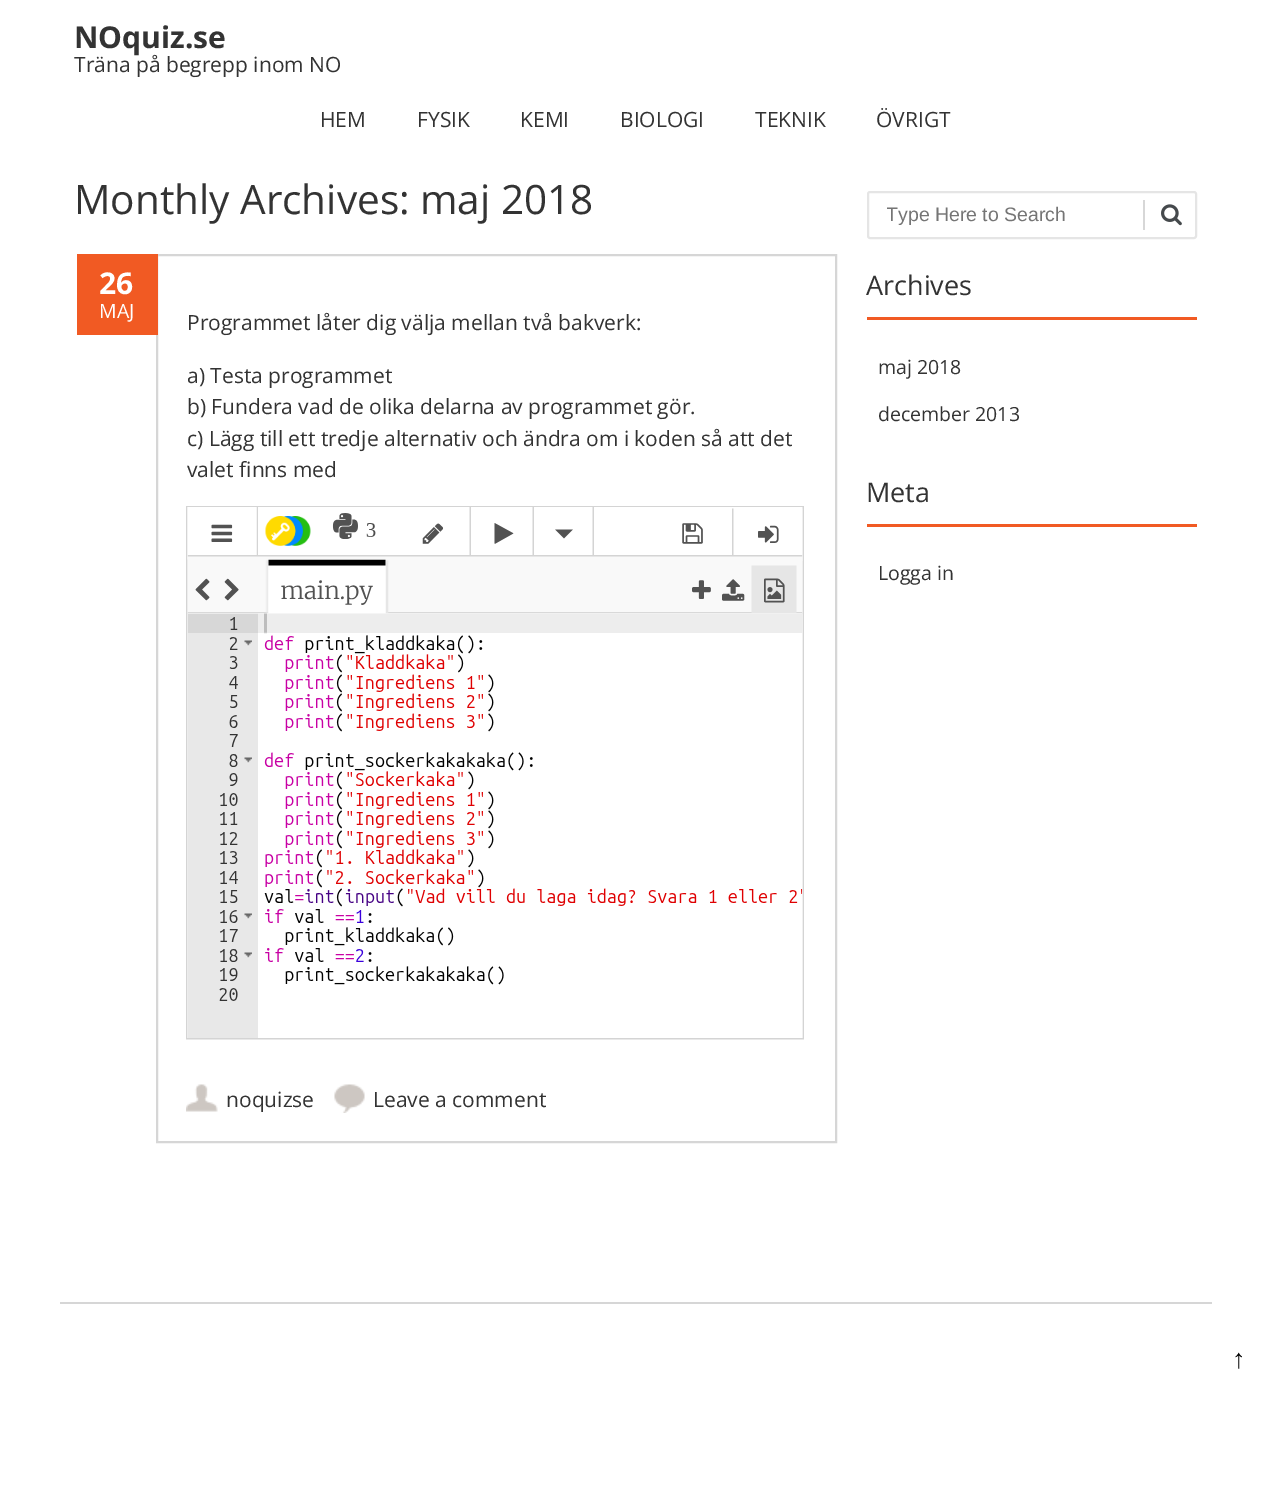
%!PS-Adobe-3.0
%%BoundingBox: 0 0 1270 1496
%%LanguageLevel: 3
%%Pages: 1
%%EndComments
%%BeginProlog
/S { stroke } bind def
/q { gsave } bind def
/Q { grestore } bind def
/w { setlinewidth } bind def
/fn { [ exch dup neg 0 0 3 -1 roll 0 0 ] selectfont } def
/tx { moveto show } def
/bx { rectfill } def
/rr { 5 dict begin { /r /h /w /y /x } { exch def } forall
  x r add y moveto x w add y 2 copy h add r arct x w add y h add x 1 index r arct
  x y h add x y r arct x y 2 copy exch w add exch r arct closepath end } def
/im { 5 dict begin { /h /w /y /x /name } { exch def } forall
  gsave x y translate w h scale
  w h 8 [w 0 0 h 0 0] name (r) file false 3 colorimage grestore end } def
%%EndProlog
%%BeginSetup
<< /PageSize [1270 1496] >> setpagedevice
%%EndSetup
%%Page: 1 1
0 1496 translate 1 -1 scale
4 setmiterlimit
1 setgray
0 0 1270 1496 bx
/OpenSans-Bold 30 fn
0.2 setgray
(NOquiz.se) 74 48 tx
/OpenSans-Regular 21 fn
(Träna på begrepp inom NO) 74 72 tx
(HEM) 320 127 tx
(FYSIK) 417 127 tx
(KEMI) 520 127 tx
(BIOLOGI) 620 127 tx
(TEKNIK) 755 127 tx
(ÖVRIGT) 876 127 tx
/OpenSans-Regular 40.5 fn
(Monthly Archives: maj 2018) 74 214 tx
0.839 setgray
2 w
157 255 679 887 rectstroke
0.945 0.353 0.137 setrgbcolor
77 254 81 81 bx
/OpenSans-Bold 30 fn
1 setgray
(26) 99 294 tx
/OpenSans-Regular 19.5 fn
(MAJ) 99 318 tx
/OpenSans-Regular 21 fn
0.2 setgray
(Programmet låter dig välja mellan två bakverk:) 187 330 tx
(a\) Testa programmet) 187 383 tx
(b\) Fundera vad de olika delarna av programmet gör.) 187 414 tx
(c\) Lägg till ett tredje alternativ och ändra om i koden så att det) 187 446 tx
(valet finns med) 187 477 tx
(image0.raw) 186 506 618 534 im
(image1.raw) 186 1084 32 28 im
(noquizse) 226 1107 tx
(image2.raw) 334 1084 31 29 im
(Leave a comment) 373 1107 tx
0.898 setgray
868 192 328 46 2 rr S
q
887 203 261 22 rectclip
/LiberationSans-Regular 19.5 fn
0.459 setgray
(Type Here to Search) 886 221 tx
Q
0.843 setgray
1143 200 2 30 bx
(image3.raw) 1161 204 21 22 im
0.945 0.353 0.137 setrgbcolor
867 317 330 3 bx
/OpenSans-Regular 27 fn
0.2 setgray
(Archives) 866 295 tx
/OpenSans-Regular 19.5 fn
(maj 2018) 878 374 tx
(december 2013) 878 421 tx
0.945 0.353 0.137 setrgbcolor
867 524 330 3 bx
/OpenSans-Regular 27 fn
0.2 setgray
(Meta) 866 502 tx
/OpenSans-Regular 19.5 fn
(Logga in) 878 580 tx
0.839 setgray
60 1302 1152 2 bx
/LiberationSans-Regular 27 fn
0 setgray
(↑) 1232 1368 tx
showpage
%%EOF
